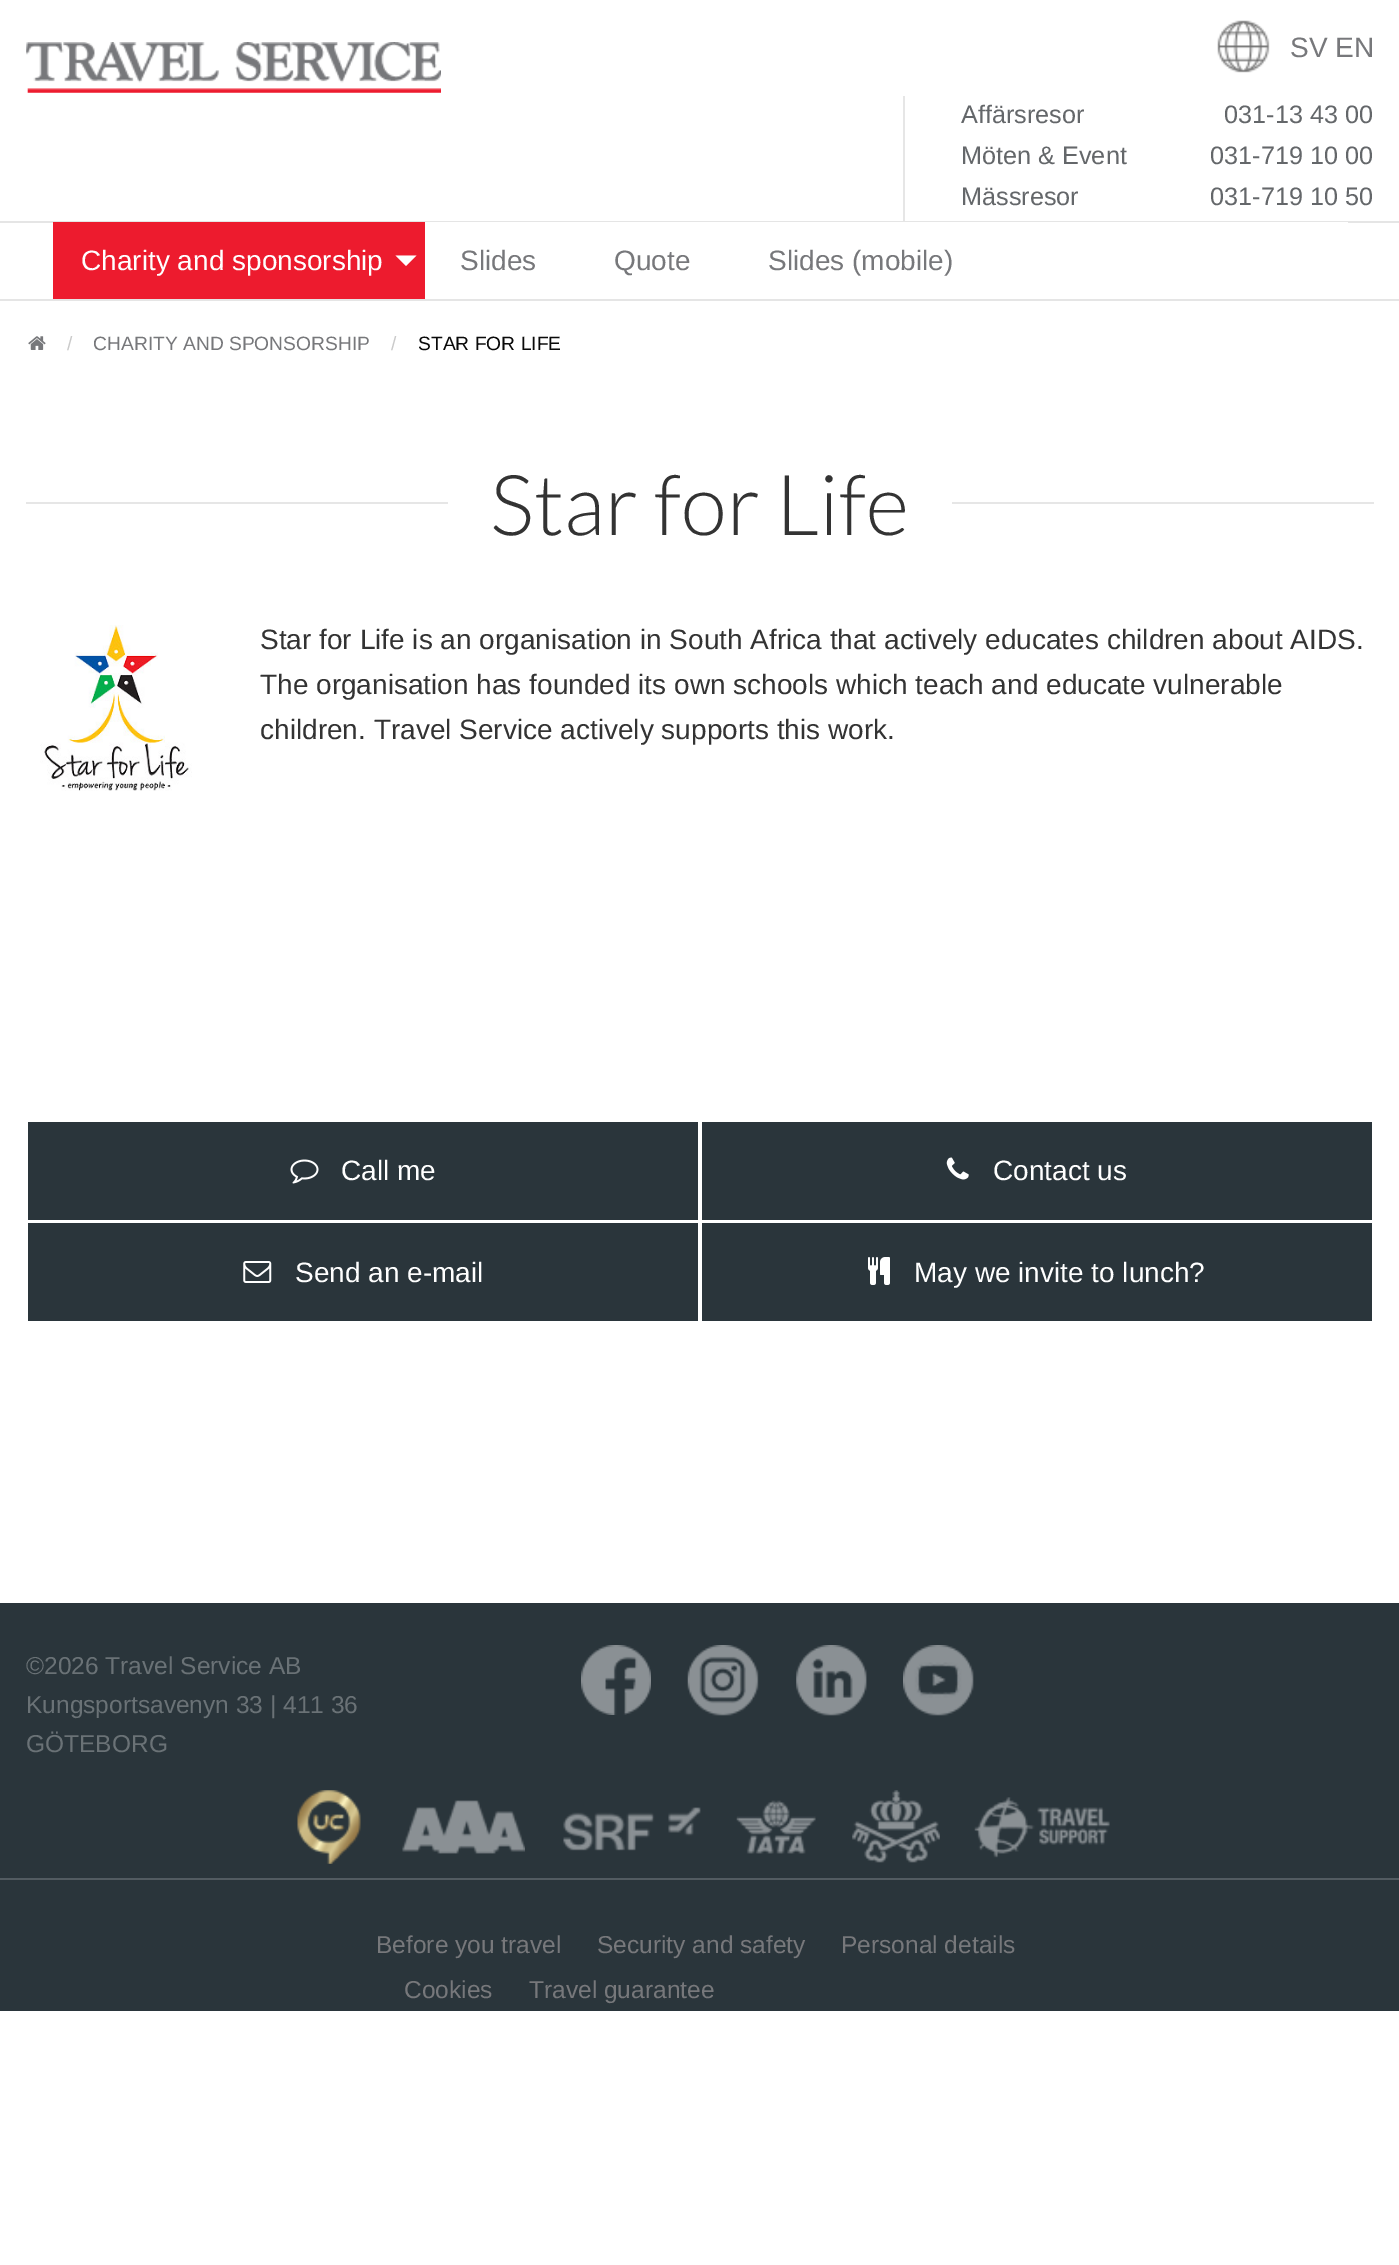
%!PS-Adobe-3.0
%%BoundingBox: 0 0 1399 2265
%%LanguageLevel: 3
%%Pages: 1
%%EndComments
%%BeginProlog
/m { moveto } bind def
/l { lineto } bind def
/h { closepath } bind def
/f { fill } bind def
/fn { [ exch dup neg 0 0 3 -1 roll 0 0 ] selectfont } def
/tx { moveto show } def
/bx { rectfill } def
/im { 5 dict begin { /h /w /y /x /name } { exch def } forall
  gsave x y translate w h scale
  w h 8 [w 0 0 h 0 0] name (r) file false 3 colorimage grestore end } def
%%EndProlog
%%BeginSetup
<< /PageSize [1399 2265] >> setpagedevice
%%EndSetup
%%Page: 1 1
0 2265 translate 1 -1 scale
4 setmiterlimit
1 setgray
0 0 1399 2265 bx
(image0.raw) 26 42 415 51 im
(image1.raw) 1217 20 53 53 im
/LiberationSans-Regular 28 fn
0.467 0.471 0.482 setrgbcolor
(SV EN) 1290 57 tx
/LiberationSans-Regular 25.25 fn
0.392 0.404 0.416 setrgbcolor
(Affärsresor) 961 123 tx
(031-13 43 00) 1224 123 tx
(Möten & Event) 961 164 tx
(031-719 10 00) 1210 164 tx
0.902 setgray
903 96 2 125 bx
0.392 0.404 0.416 setrgbcolor
(Mässresor) 961 205 tx
(031-719 10 50) 1210 205 tx
0.898 setgray
0 221 1399 2 bx
0 299 1399 2 bx
1 setgray
425 222 923 1 bx
0.929 0.106 0.18 setrgbcolor
53 222 372 77 bx
/LiberationSans-Regular 28 fn
1 setgray
(Charity and sponsorship) 81 270 tx
395.5 255.5 m 416.5 255.5 l 406 266 l h f
0.467 0.471 0.482 setrgbcolor
(Slides) 460 270 tx
(Quote) 614 270 tx
(Slides \(mobile\)) 768 270 tx
(image2.raw) 28 336 18 14 im
/LiberationSans-Regular 19.25 fn
0.792 setgray
(/) 67 350 tx
0.467 0.471 0.482 setrgbcolor
(CHARITY AND SPONSORSHIP) 93 350 tx
0.792 setgray
(/) 391 350 tx
0.039 setgray
(STAR FOR LIFE) 418 350 tx
0.902 setgray
26 502 422 2 bx
/Lato-Light 84 fn
0.2 setgray
(Star for Life) 490 535 tx
0.902 setgray
952 502 422 2 bx
(image3.raw) 40 625 152 166 im
/LiberationSans-Regular 28 fn
0.2 setgray
(Star for Life is an organisation in South Africa that actively educates children about AIDS.) 260 649 tx
(The organisation has founded its own schools which teach and educate vulnerable) 260 694 tx
(children. Travel Service actively supports this work.) 260 739 tx
0.165 0.208 0.231 setrgbcolor
28 1122 670 98 bx
(image4.raw) 290 1159 29 25 im
1 setgray
(Call me) 341 1180 tx
0.165 0.208 0.231 setrgbcolor
702 1122 670 98 bx
(image5.raw) 946 1157 23 23 im
1 setgray
(Contact us) 993 1180 tx
0.165 0.208 0.231 setrgbcolor
28 1223 670 98 bx
(image6.raw) 243 1261 29 22 im
1 setgray
(Send an e-mail) 295 1282 tx
0.165 0.208 0.231 setrgbcolor
702 1223 670 98 bx
(image7.raw) 868 1257 22 28 im
1 setgray
(May we invite to lunch?) 914 1282 tx
0.165 0.208 0.231 setrgbcolor
0 1603 1399 408 bx
/LiberationSans-Regular 24.5 fn
0.416 0.447 0.463 setrgbcolor
(©2026 Travel Service AB) 26 1674 tx
(Kungsportsavenyn 33 | 411 36) 26 1713 tx
(GÖTEBORG) 26 1752 tx
(image8.raw) 581 1645 70 70 im
(image9.raw) 687 1645 72 71 im
(image10.raw) 796 1645 71 71 im
(image11.raw) 903 1645 71 71 im
(image12.raw) 297 1790 64 74 im
(image13.raw) 402 1800 123 54 im
(image14.raw) 563 1807 138 44 im
(image15.raw) 736 1800 80 54 im
(image16.raw) 852 1790 88 73 im
(image17.raw) 974 1797 136 61 im
0.322 0.357 0.38 setrgbcolor
0 1878 1399 2 bx
0.467 0.471 0.482 setrgbcolor
(Before you travel) 376 1953 tx
(Security and safety) 597 1953 tx
(Personal details) 841 1953 tx
(Cookies) 404 1998 tx
(Travel guarantee) 529 1998 tx
showpage
%%EOF
